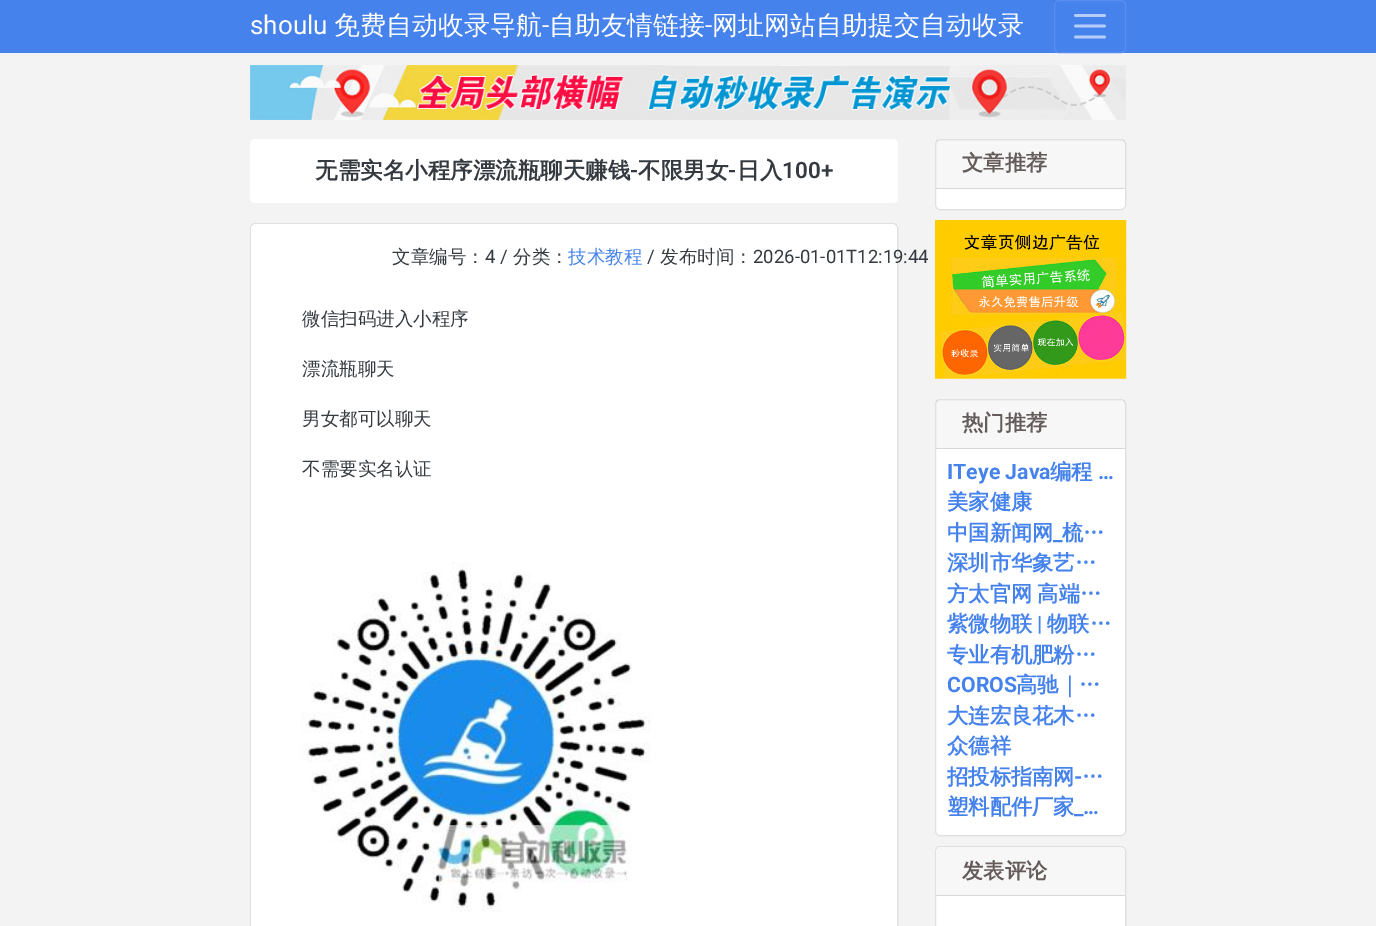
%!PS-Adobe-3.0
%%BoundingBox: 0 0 1376 926
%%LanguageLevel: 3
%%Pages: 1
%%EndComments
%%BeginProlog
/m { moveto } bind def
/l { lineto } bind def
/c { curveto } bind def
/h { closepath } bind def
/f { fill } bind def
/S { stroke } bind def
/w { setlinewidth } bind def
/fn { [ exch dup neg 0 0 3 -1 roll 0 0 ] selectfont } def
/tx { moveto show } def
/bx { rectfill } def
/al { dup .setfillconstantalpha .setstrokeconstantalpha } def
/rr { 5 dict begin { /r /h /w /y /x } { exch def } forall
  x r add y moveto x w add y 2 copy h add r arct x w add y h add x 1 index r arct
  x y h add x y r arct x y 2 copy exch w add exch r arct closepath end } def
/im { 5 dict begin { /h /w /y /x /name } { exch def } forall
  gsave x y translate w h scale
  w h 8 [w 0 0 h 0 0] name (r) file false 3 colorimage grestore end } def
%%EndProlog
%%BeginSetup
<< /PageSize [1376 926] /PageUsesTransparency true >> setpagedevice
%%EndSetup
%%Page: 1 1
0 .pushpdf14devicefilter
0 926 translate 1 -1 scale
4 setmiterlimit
0.953 setgray
0 0 1376 926 bx
0.271 0.51 0.925 setrgbcolor
0 0 1376 53 bx
/Roboto-Regular 26 fn
1 setgray
(shoulu) 250 34 tx
/WenQuanYiZenHei-Medium 26 fn
(免费自动收录导航) 334 34 tx
/Roboto-Regular 26 fn
(-) 542 34 tx
/WenQuanYiZenHei-Medium 26 fn
(自助友情链接) 549 34 tx
/Roboto-Regular 26 fn
(-) 705 34 tx
/WenQuanYiZenHei-Medium 26 fn
(网址网站自助提交自动收录) 712 34 tx
0.345 0.561 0.933 setrgbcolor
1054.5 0.5 71 52 4.5 rr S
0.71 0.804 0.969 setrgbcolor
2.7 w
1 setlinecap
1075.5 15.5 m 1104.5 15.5 l 1075.5 26 m 1104.5 26 l 1075.5 37 m 1104.5 37 l S
(image0.raw) 250 65 876 55 im
1 setgray
250 139 648 64 5 rr f
/WenQuanYiZenHei-Bold 22.5 fn
0.204 0.227 0.251 setrgbcolor
(无需实名小程序漂流瓶聊天赚钱) 315 178 tx
/Roboto-SemiBold 22.5 fn
(-) 630 178 tx
/WenQuanYiZenHei-Bold 22.5 fn
(不限男女) 638 178 tx
/Roboto-SemiBold 22.5 fn
(-) 728 178 tx
/WenQuanYiZenHei-Bold 22.5 fn
(日入) 737 178 tx
/Roboto-SemiBold 22.5 fn
(100+) 782 178 tx
1 setgray
250 223 648 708 5 rr f
0.12 al
0 setgray
1 w
0 setlinecap
250.5 223.5 647 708 4.5 rr S
1 al
1 setgray
251 224 645 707 5 rr f
/WenQuanYiZenHei-Medium 18.5 fn
0.204 0.227 0.251 setrgbcolor
(文章编号：) 392 263 tx
/Roboto-Regular 18.5 fn
(4 /) 485 263 tx
/WenQuanYiZenHei-Medium 18.5 fn
(分类：) 513 263 tx
0.271 0.51 0.925 setrgbcolor
(技术教程) 568 263 tx
/Roboto-Regular 18.5 fn
0.204 0.227 0.251 setrgbcolor
(/) 647 263 tx
/WenQuanYiZenHei-Medium 18.5 fn
(发布时间：) 660 263 tx
/Roboto-Regular 18.5 fn
(2026-01-01T12:19:44) 753 263 tx
/WenQuanYiZenHei-Medium 18.5 fn
(微信扫码进入小程序) 302 325 tx
(漂流瓶聊天) 302 375 tx
(男女都可以聊天) 302 425 tx
(不需要实名认证) 302 475 tx
(image1.raw) 301 562 350 351 im
1 setgray
935 139 191 71 5 rr f
0.12 al
0 setgray
935.5 139.5 190 70 4.5 rr S
0.03 al
936 140 189 48 bx
1 al
0.847 setgray
936 188 189 1 bx
/WenQuanYiZenHei-Bold 21.25 fn
0.396 0.357 0.357 setrgbcolor
(文章推荐) 962 170 tx
(image2.raw) 935 220 192 159 im
1 setgray
935 399 191 437 5 rr f
0.12 al
0 setgray
935.5 399.5 190 436 4.5 rr S
0.03 al
936 400 189 48 bx
1 al
0.847 setgray
936 448 189 1 bx
0.396 0.357 0.357 setrgbcolor
(热门推荐) 962 430 tx
/Roboto-Bold 21.25 fn
0.271 0.51 0.925 setrgbcolor
(ITeye Java) 947 479 tx
/WenQuanYiZenHei-Bold 21.25 fn
(编程) 1050 479 tx
/Roboto-Bold 21.25 fn
(…) 1098 479 tx
/WenQuanYiZenHei-Bold 21.25 fn
(美家健康) 947 509 tx
(中国新闻网) 947 540 tx
/Roboto-Bold 21.25 fn
(_) 1053 540 tx
/WenQuanYiZenHei-Bold 21.25 fn
(梳…) 1062 540 tx
(深圳市华象艺…) 947 570 tx
947 601 m -1 0 32 (方太官网 高端…) widthshow
(紫微物联) 947 631 tx
/Roboto-Bold 21.25 fn
(|) 1037 631 tx
/WenQuanYiZenHei-Bold 21.25 fn
(物联…) 1047 631 tx
(专业有机肥粉…) 947 662 tx
/Roboto-Bold 21.25 fn
(COROS) 947 692 tx
/WenQuanYiZenHei-Bold 21.25 fn
(高驰｜…) 1016 692 tx
(大连宏良花木…) 947 723 tx
(众德祥) 947 753 tx
(招投标指南网) 947 784 tx
/Roboto-Bold 21.25 fn
(-) 1074 784 tx
/WenQuanYiZenHei-Bold 21.25 fn
(…) 1082 784 tx
(塑料配件厂家) 947 814 tx
/Roboto-Bold 21.25 fn
(_…) 1074 814 tx
1 setgray
935 846 191 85 5 rr f
0.12 al
0 setgray
935.5 846.5 190 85 4.5 rr S
1 al
0.969 setgray
940 848 m 1121 848 l 1123 848 1125 850 1125 852 c 1125 896 l 936 896 l 936 852 l 936 850 938 848 940 848 c h f
0.847 setgray
936 895 189 1 bx
/WenQuanYiZenHei-Bold 21.25 fn
0.396 0.357 0.357 setrgbcolor
(发表评论) 962 878 tx
.poppdf14devicefilter showpage
%%EOF
